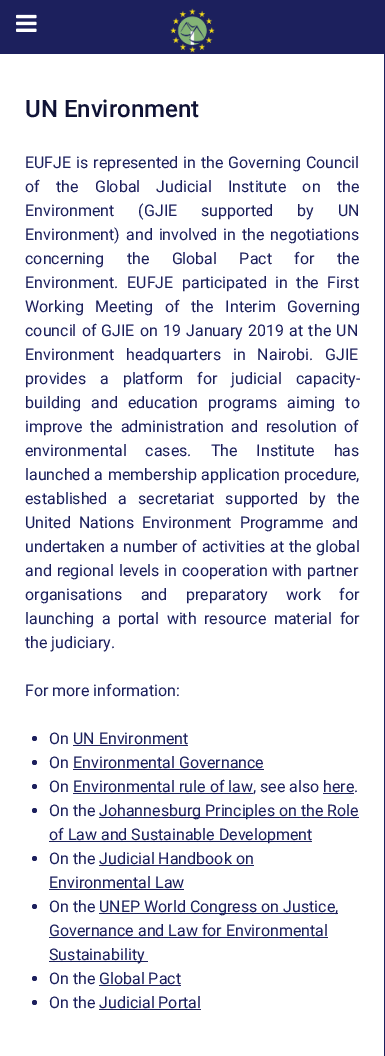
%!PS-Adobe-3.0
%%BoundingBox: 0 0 385 1056
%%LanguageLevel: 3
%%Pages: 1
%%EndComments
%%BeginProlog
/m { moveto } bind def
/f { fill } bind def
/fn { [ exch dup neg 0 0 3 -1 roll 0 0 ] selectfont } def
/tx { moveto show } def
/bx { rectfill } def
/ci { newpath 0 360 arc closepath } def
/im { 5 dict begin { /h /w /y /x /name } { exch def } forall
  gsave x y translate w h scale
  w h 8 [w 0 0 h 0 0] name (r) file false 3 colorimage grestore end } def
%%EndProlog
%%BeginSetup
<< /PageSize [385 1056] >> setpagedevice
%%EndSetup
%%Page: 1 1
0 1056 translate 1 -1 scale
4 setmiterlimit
1 setgray
0 0 385 1056 bx
0.11 0.125 0.365 setrgbcolor
0 0 385 54 bx
(image0.raw) 170 8 45 45 im
(image1.raw) 16 14 21 18 im
384 54 1 1002 bx
/Roboto-Medium 24 fn
0.063 0.075 0.212 setrgbcolor
(UN Environment) 25 117 tx
/Roboto-Regular 16 fn
0.11 0.125 0.365 setrgbcolor
25 168 m 1 0 32 (EUFJE is represented in the Governing Council) widthshow
25 192 m 12.25 0 32 (of the Global Judicial Institute on the) widthshow
25 216 m 20 0 32 (Environment \(GJIE supported by UN) widthshow
25 240 m 2 0 32 (Environment\) and involved in the negotiations) widthshow
25 264 m 18.5 0 32 (concerning the Global Pact for the) widthshow
25 288 m 4.5 0 32 (Environment. EUFJE participated in the First) widthshow
25 312 m 7.75 0 32 (Working Meeting of the Interim Governing) widthshow
25 336 m 1.25 0 32 (council of GJIE on 19 January 2019 at the UN) widthshow
25 360 m 8 0 32 (Environment headquarters in Nairobi. GJIE) widthshow
25 384 m 10 0 32 (provides a platform for judicial capacity-) widthshow
25 408 m 6 0 32 (building and education programs aiming to) widthshow
25 432 m 3.75 0 32 (improve the administration and resolution of) widthshow
25 456 m 15 0 32 (environmental cases. The Institute has) widthshow
25 480 m 0.5 0 32 (launched a membership application procedure,) widthshow
25 504 m 7.25 0 32 (established a secretariat supported by the) widthshow
25 528 m 4 0 32 (United Nations Environment Programme and) widthshow
25 552 m 0.75 0 32 (undertaken a number of activities at the global) widthshow
25 576 m 1 0 32 (and regional levels in cooperation with partner) widthshow
25 600 m 14.5 0 32 (organisations and preparatory work for) widthshow
25 624 m 3.5 0 32 (launching a portal with resource material for) widthshow
(the judiciary.) 25 648 tx
(For more information:) 25 696 tx
34.5 738.5 2.5 ci f
(On) 49 744 tx
(UN Environment) 73 744 tx
0.11 0.129 0.365 setrgbcolor
73 745 115 1 bx
0.11 0.125 0.365 setrgbcolor
34.5 762.5 2.5 ci f
(On) 49 768 tx
(Environmental Governance) 73 768 tx
0.11 0.129 0.365 setrgbcolor
73 769 191 1 bx
0.11 0.125 0.365 setrgbcolor
34.5 786.5 2.5 ci f
(On) 49 792 tx
(Environmental rule of law) 73 792 tx
0.11 0.129 0.365 setrgbcolor
73 793 180 1 bx
0.11 0.125 0.365 setrgbcolor
(, see also) 253 792 tx
(here) 323 792 tx
0.11 0.129 0.365 setrgbcolor
323 793 31 1 bx
0.11 0.125 0.365 setrgbcolor
(.) 354 792 tx
34.5 810.5 2.5 ci f
(On the) 49 816 tx
0.11 0.129 0.365 setrgbcolor
99 817 260 1 bx
0.11 0.125 0.365 setrgbcolor
(Johannesburg Principles on the Role) 99 816 tx
0.11 0.129 0.365 setrgbcolor
49 841 263 1 bx
0.11 0.125 0.365 setrgbcolor
(of Law and Sustainable Development) 49 840 tx
34.5 858.5 2.5 ci f
(On the) 49 864 tx
(Judicial Handbook on) 99 864 tx
0.11 0.129 0.365 setrgbcolor
99 865 155 1 bx
0.11 0.125 0.365 setrgbcolor
(Environmental Law) 49 888 tx
0.11 0.129 0.365 setrgbcolor
49 889 135 1 bx
0.11 0.125 0.365 setrgbcolor
34.5 906.5 2.5 ci f
(On the) 49 912 tx
0.11 0.129 0.365 setrgbcolor
99 913 239 1 bx
0.11 0.125 0.365 setrgbcolor
(UNEP World Congress on Justice,) 99 912 tx
(Governance and Law for Environmental) 49 936 tx
0.11 0.129 0.365 setrgbcolor
49 937 279 1 bx
49 961 99 1 bx
0.11 0.125 0.365 setrgbcolor
(Sustainability) 49 960 tx
34.5 978.5 2.5 ci f
(On the) 49 984 tx
(Global Pact) 99 984 tx
0.11 0.129 0.365 setrgbcolor
99 985 82 1 bx
0.11 0.125 0.365 setrgbcolor
34.5 1002.5 2.5 ci f
(On the) 49 1008 tx
(Judicial Portal) 99 1008 tx
0.11 0.129 0.365 setrgbcolor
99 1009 102 1 bx
showpage
%%EOF
